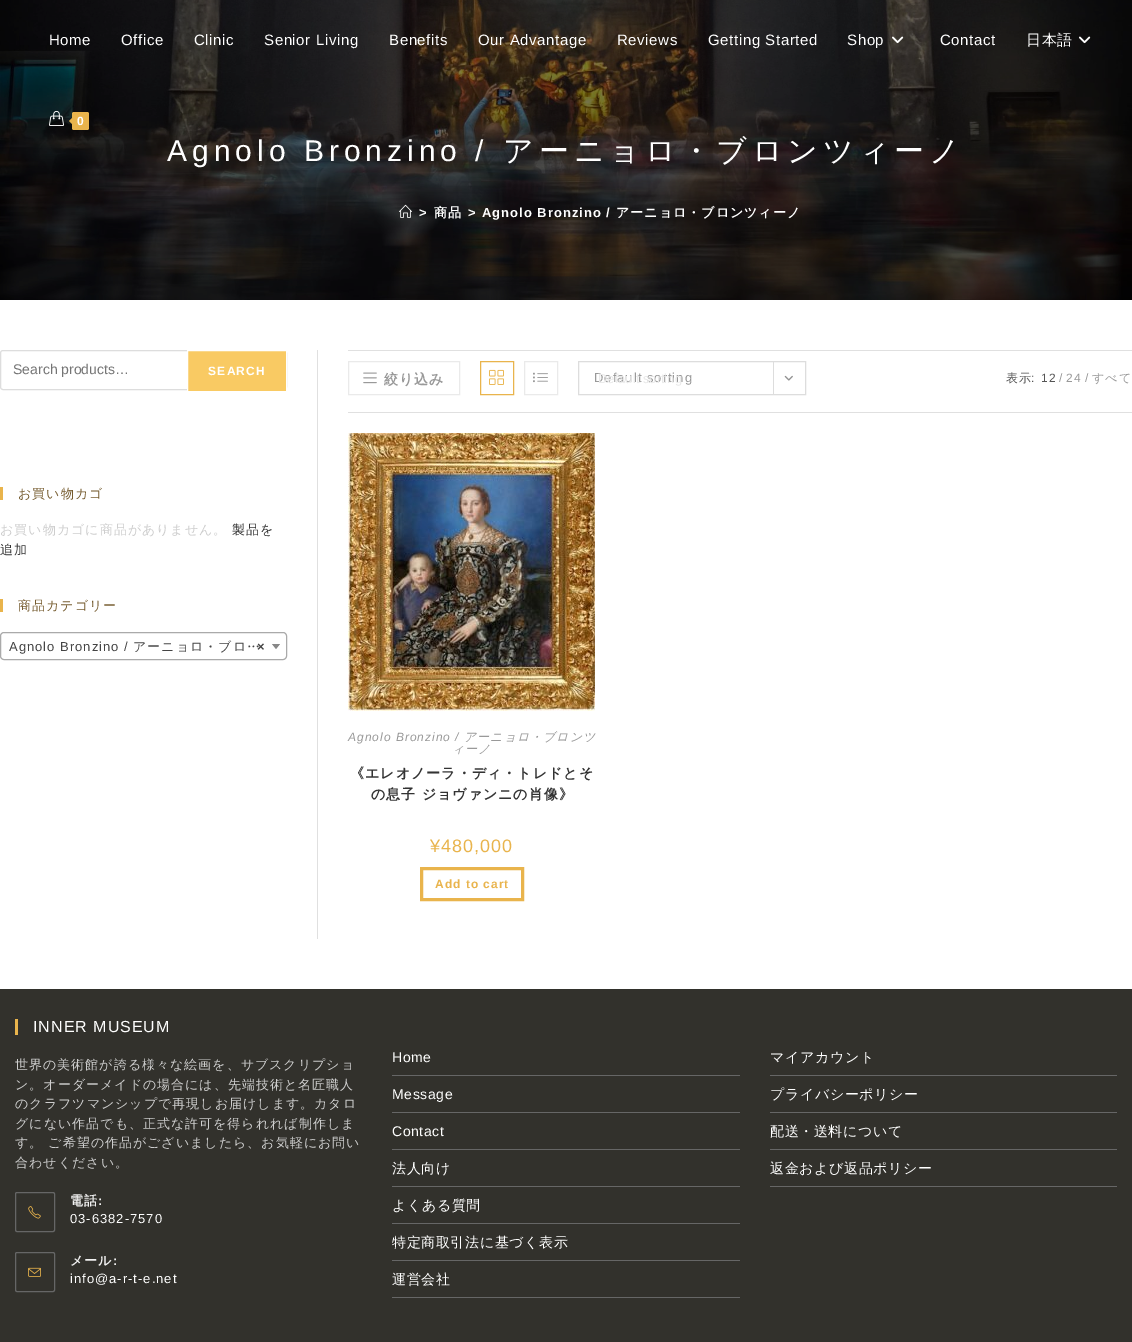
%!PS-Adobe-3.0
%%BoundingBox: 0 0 1132 1342
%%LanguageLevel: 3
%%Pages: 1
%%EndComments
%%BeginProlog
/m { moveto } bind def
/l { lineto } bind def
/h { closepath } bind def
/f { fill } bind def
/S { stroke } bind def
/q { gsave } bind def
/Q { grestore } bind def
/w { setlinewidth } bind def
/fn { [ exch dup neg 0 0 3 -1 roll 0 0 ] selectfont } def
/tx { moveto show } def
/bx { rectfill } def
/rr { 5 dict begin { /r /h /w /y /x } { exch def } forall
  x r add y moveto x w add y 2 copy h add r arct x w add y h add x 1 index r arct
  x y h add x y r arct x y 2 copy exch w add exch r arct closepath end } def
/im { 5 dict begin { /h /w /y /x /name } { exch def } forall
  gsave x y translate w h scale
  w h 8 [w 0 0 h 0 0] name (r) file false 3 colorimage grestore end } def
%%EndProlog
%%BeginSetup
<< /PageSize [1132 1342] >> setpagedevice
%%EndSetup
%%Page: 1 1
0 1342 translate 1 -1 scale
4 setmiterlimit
1 setgray
0 0 1132 1342 bx
(image3.raw) 0 0 1132 300 im
/LiberationSans-Regular 15 fn
49 45 m 0.6 0 (Home) ashow
121 45 m 0.6 0 (Office) ashow
194 45 m 0.6 0 (Clinic) ashow
264 45 m 0.6 0 (Senior Living) ashow
389 45 m 0.6 0 (Benefits) ashow
478 45 m 0.6 0 (Our Advantage) ashow
617 45 m 0.6 0 (Reviews) ashow
708 45 m 0.6 0 (Getting Started) ashow
847 45 m 0.6 0 (Shop) ashow
(image0.raw) 892 36 12 8 im
940 45 m 0.6 0 (Contact) ashow
/WenQuanYiZenHei-Medium 15 fn
1026 45 m 0.6 0 (日本語) ashow
(image1.raw) 1079 36 12 8 im
(image2.raw) 49 110 15 16 im
0.914 0.706 0.298 setrgbcolor
72 112 17 18 2 rr f
74 116 m 74 126 l 69 121 l h f
/LiberationSans-Bold 12 fn
1 setgray
(0) 77 125 tx
/LiberationSans-Regular 30 fn
167 161 m 5 0 (Agnolo Bronzino /) ashow
/WenQuanYiZenHei-Medium 30 fn
503 161 m 5 0 (アーニョロ・ブロンツィーノ) ashow
(image4.raw) 399 204 13 14 im
/LiberationSans-Bold 13 fn
419 217 m 1 0 (>) ashow
/WenQuanYiZenHei-Bold 13 fn
434 217 m 1 0 (商品) ashow
/LiberationSans-Bold 13 fn
468 217 m 1 0 (>) ashow
482 217 m 1 0 (Agnolo Bronzino /) ashow
/WenQuanYiZenHei-Bold 13 fn
616 217 m 1 0 (アーニョロ・ブロンツィーノ) ashow
0.867 setgray
0.5 350.5 286 39 2.5 rr S
/LiberationSans-Regular 14 fn
0.459 setgray
(Search products…) 13 374 tx
0.976 0.792 0.388 setrgbcolor
187.5 350.5 m 286.5 350.5 l 286.5 391.5 l 187.5 391.5 l h q f Q
1 setgray
S
/LiberationSans-Bold 12 fn
208 375 m 1.25 0 (SEARCH) ashow
0.914 0.706 0.298 setrgbcolor
0 487 3 13 bx
/WenQuanYiZenHei-Medium 13 fn
0.463 0.361 0.184 setrgbcolor
18 498 m 1 0 (お買い物カゴ) ashow
0.808 setgray
0 534 m 1 0 (お買い物カゴに商品がありません。) ashow
0.2 setgray
232 534 m 1 0 (製品を) ashow
0 554 m 1 0 (追加) ashow
0.914 0.706 0.298 setrgbcolor
0 599 3 13 bx
0.463 0.361 0.184 setrgbcolor
18 610 m 1 0 (商品カテゴリー) ashow
0.667 setgray
0.5 632.5 286 27 3.5 rr S
/LiberationSans-Regular 13 fn
0.267 setgray
9 651 m 1 0 (Agnolo Bronzino /) ashow
/WenQuanYiZenHei-Medium 13 fn
133 651 m 1 0 (アーニョロ・ブロ…) ashow
/LiberationSans-Bold 13 fn
257 651 m 1 0 (×) ashow
0.533 setgray
272 644 m 280 644 l 276 649 l h f
0.878 setgray
317 350 1 589 bx
348 350 784 1 bx
348 412 784 1 bx
0.918 setgray
348.5 361.5 111 33 rectstroke
(image5.raw) 363 372 14 12 im
/WenQuanYiZenHei-Bold 14 fn
0.6 setgray
384 384 m 1 0 (絞り込み) ashow
0.914 0.706 0.298 setrgbcolor
480.5 361.5 33 33 rectstroke
(image6.raw) 489 369 15 16 im
0.918 setgray
524.5 361.5 33 33 rectstroke
(image7.raw) 533 372 15 11 im
0.867 setgray
578.5 361.5 227 33 rectstroke
/LiberationSans-Regular 13 fn
0.6 setgray
594 382 m 1 0 (Default sorting) ashow
0.867 setgray
773 362 1 32 bx
(image8.raw) 784 375 9 6 im
0.914 setgray
(Default sorting) 598 383 tx
/WenQuanYiZenHei-Medium 12 fn
0.333 setgray
1006 382 m 0.6 0 (表示) ashow
/LiberationSans-Regular 12 fn
1031 382 m 0.6 0 (:) ashow
1041 382 m 1 0 (12) ashow
0.6 setgray
1059 382 m 1 0 (/) ashow
1066 382 m 1 0 (24) ashow
1085 382 m 1 0 (/) ashow
/WenQuanYiZenHei-Medium 12 fn
1092 382 m 1 0 (すべて) ashow
(image9.raw) 348 433 247 278 im
/LiberationSans-Italic 12 fn
348 741 m 1 0 (Agnolo Bronzino /) ashow
/WenQuanYiZenHei-MediumItalic 12 fn
464 741 m 1 0 (アーニョロ・ブロンツ) ashow
452 753 m 1 0 (ィーノ) ashow
/WenQuanYiZenHei-Bold 14 fn
0.2 setgray
350 778 m 1 0 (《エレオノーラ・ディ・トレドとそ) ashow
371 799 m 1 0 (の息子 ジョヴァンニの肖像》) ashow
/LiberationSans-Regular 18 fn
0.914 0.706 0.298 setrgbcolor
430 852 m 1 0 (¥480,000) ashow
3 w
421.5 868.5 101 31 rectstroke
/LiberationSans-Bold 12 fn
435 888 m 1 0 (Add to cart) ashow
0.196 0.192 0.173 setrgbcolor
0 989 1132 353 bx
0.914 0.706 0.298 setrgbcolor
15 1019 3 16 bx
/LiberationSans-Regular 16 fn
1 setgray
33 1032 m 1 0 (INNER MUSEUM) ashow
/WenQuanYiZenHei-Medium 13 fn
0.808 setgray
15 1069 m 1 0 (世界の美術館が誇る様々な絵画を、サブスクリプショ) ashow
15 1089 m 1 0 (ン。オーダーメイドの場合には、先端技術と名匠職人) ashow
15 1108 m 1 0 (のクラフツマンシップで再現しお届けします。カタロ) ashow
15 1128 m 1 0 (グにない作品でも、正式な許可を得られれば制作しま) ashow
15 1147 m 1 0 (す。 ご希望の作品がございましたら、お気軽にお問い) ashow
15 1167 m 1 0 (合わせください。) ashow
0.4 setgray
1 w
15.5 1192.5 39 39 1.5 rr S
(image10.raw) 28 1206 13 13 im
/WenQuanYiZenHei-Bold 13 fn
0.949 setgray
70 1205 m 1 0 (電話) ashow
/LiberationSans-Bold 13 fn
98 1205 m 1 0 (:) ashow
/LiberationSans-Regular 13 fn
1 setgray
70 1223 m 1 0 (03-6382-7570) ashow
0.4 setgray
15.5 1252.5 39 39 1.5 rr S
(image11.raw) 28 1267 13 10 im
/WenQuanYiZenHei-Bold 13 fn
0.949 setgray
70 1265 m 1 0 (メール) ashow
/LiberationSans-Bold 13 fn
113 1265 m 1 0 (:) ashow
/LiberationSans-Regular 13 fn
1 setgray
70 1283 m 1 0 (info@a-r-t-e.net) ashow
0.4 setgray
392 1075 348 1 bx
/LiberationSans-Regular 14 fn
1 setgray
392 1062 m 0.6 0 (Home) ashow
0.4 setgray
392 1112 348 1 bx
1 setgray
392 1099 m 0.6 0 (Message) ashow
0.4 setgray
392 1149 348 1 bx
1 setgray
392 1136 m 0.6 0 (Contact) ashow
0.4 setgray
392 1186 348 1 bx
/WenQuanYiZenHei-Medium 14 fn
1 setgray
392 1173 m 0.6 0 (法人向け) ashow
0.4 setgray
392 1223 348 1 bx
1 setgray
392 1210 m 0.6 0 (よくある質問) ashow
0.4 setgray
392 1260 348 1 bx
1 setgray
392 1247 m 0.6 0 (特定商取引法に基づく表示) ashow
0.4 setgray
392 1297 348 1 bx
1 setgray
392 1284 m 0.6 0 (運営会社) ashow
0.4 setgray
770 1075 347 1 bx
1 setgray
770 1062 m 0.6 0 (マイアカウント) ashow
0.4 setgray
770 1112 347 1 bx
1 setgray
770 1099 m 0.6 0 (プライバシーポリシー) ashow
0.4 setgray
770 1149 347 1 bx
1 setgray
770 1136 m 0.6 0 (配送・送料について) ashow
0.4 setgray
770 1186 347 1 bx
1 setgray
770 1173 m 0.6 0 (返金および返品ポリシー) ashow
showpage
%%EOF
